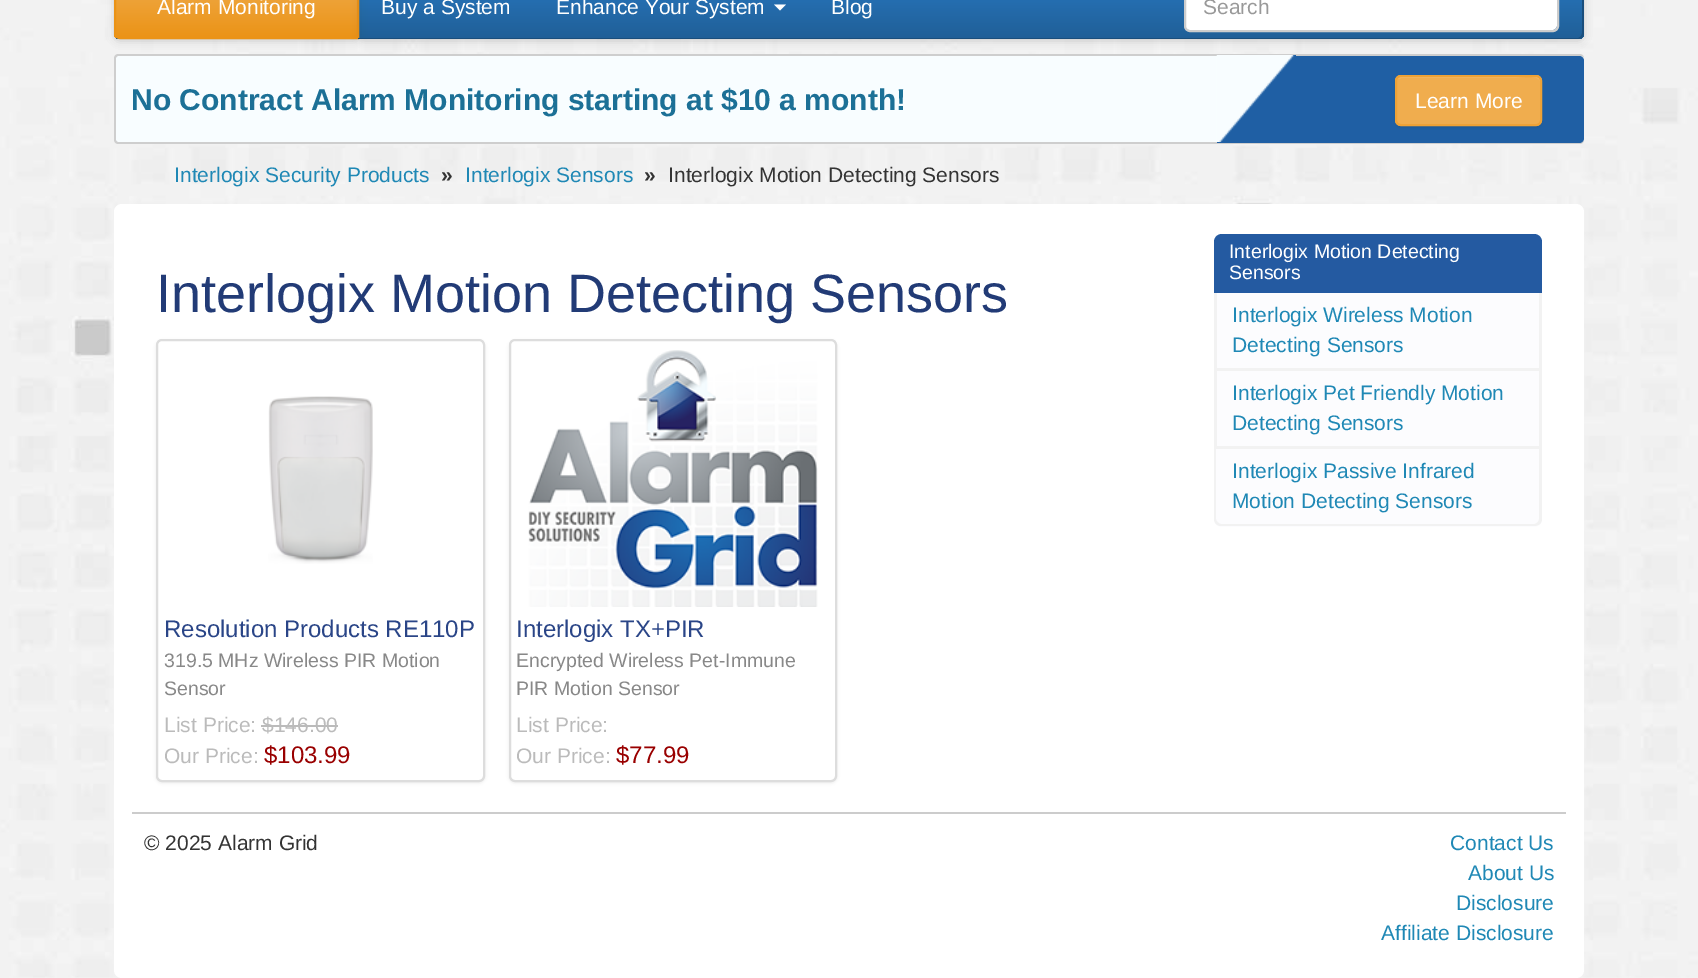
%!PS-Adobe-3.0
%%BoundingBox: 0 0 1698 978
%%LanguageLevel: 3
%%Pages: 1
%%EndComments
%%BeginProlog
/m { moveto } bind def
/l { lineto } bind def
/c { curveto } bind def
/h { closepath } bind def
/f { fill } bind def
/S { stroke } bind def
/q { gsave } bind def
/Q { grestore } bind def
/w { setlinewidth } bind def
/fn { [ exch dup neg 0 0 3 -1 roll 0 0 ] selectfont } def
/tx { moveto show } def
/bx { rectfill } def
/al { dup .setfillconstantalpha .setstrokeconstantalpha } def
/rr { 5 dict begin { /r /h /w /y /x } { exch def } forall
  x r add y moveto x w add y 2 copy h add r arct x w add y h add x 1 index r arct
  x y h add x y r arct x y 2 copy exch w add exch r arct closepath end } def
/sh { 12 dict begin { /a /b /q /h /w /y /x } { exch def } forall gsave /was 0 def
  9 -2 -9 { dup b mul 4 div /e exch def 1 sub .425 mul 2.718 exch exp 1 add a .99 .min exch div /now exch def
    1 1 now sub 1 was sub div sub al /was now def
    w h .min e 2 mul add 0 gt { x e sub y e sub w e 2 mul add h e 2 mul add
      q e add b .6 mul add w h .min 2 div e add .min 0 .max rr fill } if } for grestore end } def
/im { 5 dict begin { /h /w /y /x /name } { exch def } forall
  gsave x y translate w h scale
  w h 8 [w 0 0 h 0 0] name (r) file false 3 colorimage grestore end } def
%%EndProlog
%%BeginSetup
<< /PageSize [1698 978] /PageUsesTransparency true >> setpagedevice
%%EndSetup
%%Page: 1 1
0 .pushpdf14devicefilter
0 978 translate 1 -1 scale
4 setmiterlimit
0.957 0.965 0.957 setrgbcolor
0 0 1698 978 bx
(image0.raw) 0 0 1698 978 im
0 setgray
114 -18 1470 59 6 4 0.07 sh
q 114 -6 1470 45 6 rr clip newpath
<< /ShadingType 2 /ColorSpace /DeviceRGB /Coords [849 -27 849 39] /Extend [true true] /Function << /FunctionType 2 /Domain [0 1] /C0 [0.161 0.475 0.757] /C1 [0.125 0.373 0.592] /N 1 >> >> shfill Q
114 -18 245 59 6 4 0.07 sh
q
120 -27 m 359 -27 l 359 39 l 120 39 l 116.5 39 114 36.5 114 33 c 114 -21 l 114 -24.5 116.5 -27 120 -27 c h clip newpath
q 114 0 m 357 0 l 357 38 l 114 38 l h clip newpath
<< /ShadingType 2 /ColorSpace /DeviceRGB /Coords [236 -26 236 38] /Extend [true true] /Function << /FunctionType 2 /Domain [0 1] /C0 [0.941 0.678 0.306] /C1 [0.922 0.576 0.086] /N 1 >> >> shfill Q
Q
0.922 0.576 0.086 setrgbcolor
2 w
120 -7 m 358 -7 l 358 38 l 120 38 l 117 38 115 36 115 33 c 115 -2 l 115 -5 117 -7 120 -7 c h S
/LiberationSans-Regular 21 fn
1 setgray
(Alarm Monitoring) 157 14 tx
q
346 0 m 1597 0 l 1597 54 l 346 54 l h 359 -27 m 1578 -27 l 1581.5 -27 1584 -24.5 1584 -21 c 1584 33 l 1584 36.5 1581.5 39 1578 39 c 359 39 l h eoclip newpath
0 setgray
359 -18 1225 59 6 4 0.07 sh
Q
0.102 0.306 0.486 setrgbcolor
358 -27 m 1578 -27 l 1581 -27 1584 -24 1584 -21 c 1584 33 l 1584 36 1581 39 1578 39 c 358 39 l h 358 -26 m 1578 -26 l 1580 -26 1582 -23 1582 -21 c 1582 33 l 1582 35 1580 38 1578 38 c 358 38 l h eofill
1 setgray
(Buy a System) 381 14 tx
(Enhance Your System) 556 14 tx
774 4.5 m 786 4.5 l 780 10.5 l h f
(Blog) 831 14 tx
1185 -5 372 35 5 rr f
0.8 setgray
1185 -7 373 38 5 rr S
0.6 setgray
(Search) 1203 14 tx
0.973 0.992 1 setrgbcolor
114 54 1470 90 5 rr f
0.808 setgray
118 54 m 1580 54 l 1582 54 1584 56 1584 58 c 1584 140 l 1584 142 1582 144 1580 144 c 118 144 l 116 144 114 142 114 140 c 114 58 l 114 56 116 54 118 54 c h 118 56 m 1580 56 l 1582 56 1584 57 1584 58 c 1584 140 l 1584 141 1582 142 1580 142 c 118 142 l 117 142 116 141 116 140 c 116 58 l 116 57 117 56 118 56 c h eofill
/LiberationSans-Bold 30 fn
0.11 0.439 0.588 setrgbcolor
(No Contract Alarm Monitoring starting at $10 a month!) 131 110 tx
0.122 0.373 0.643 setrgbcolor
1217 56 m 1579 56 l 1582 56 1584 58 1584 61 c 1584 138 l 1584 141 1582 143 1579 143 c 1217 143 l h f
(image1.raw) 1216 55 80 87 im
0 setgray
1395 77 147 51 6 1 0.07 sh
0.941 0.678 0.306 setrgbcolor
1395 75 147 51 6 rr f
0.949 0.725 0.412 setrgbcolor
1401 78 m 1514 78 l 1517 78 1538 74 1540 81 c 1540 123 l 1541 122 1541 121 1541 120 c 1541 82 l 1541 79 1539 77 1536 77 c 1402 77 l 1400 77 1399 78 1398 79 c h f
0.933 0.635 0.212 setrgbcolor
1396 76 145 49 5 rr S
/LiberationSans-Regular 21 fn
1 setgray
(Learn More) 1415 108 tx
0.122 0.533 0.71 setrgbcolor
(Interlogix Security Products) 174 182 tx
/LiberationSans-Bold 21 fn
0.2 setgray
(») 441 182 tx
/LiberationSans-Regular 21 fn
0.122 0.533 0.71 setrgbcolor
(Interlogix Sensors) 465 182 tx
/LiberationSans-Bold 21 fn
0.2 setgray
(») 644 182 tx
/LiberationSans-Regular 21 fn
(Interlogix Motion Detecting Sensors) 668 182 tx
1 setgray
114 204 1470 774 8 rr f
/LiberationSans-Regular 54 fn
0.133 0.231 0.463 setrgbcolor
(Interlogix Motion Detecting Sensors) 156 312 tx
0 setgray
156 341 329 442 6 1.5 0.07 sh
1 setgray
157 340 327 441 5 rr q f Q
0.867 setgray
S
(image2.raw) 268 396 105 168 im
/LiberationSans-Regular 24 fn
0.165 0.271 0.529 setrgbcolor
(Resolution Products RE110P) 164 637 tx
/LiberationSans-Regular 19.5 fn
0.533 setgray
(319.5 MHz Wireless PIR Motion) 164 667 tx
(Sensor) 164 695 tx
/LiberationSans-Regular 21 fn
0.733 setgray
(List Price: $146.00) 164 732 tx
261 725 77 2 bx
(Our Price:) 164 763 tx
/LiberationSans-Regular 24 fn
0.6 0 0 setrgbcolor
($103.99) 264 763 tx
0 setgray
509 341 328 442 6 1.5 0.07 sh
1 setgray
510 340 326 441 5 rr q f Q
0.867 setgray
S
(image3.raw) 528 350 290 257 im
0.165 0.271 0.529 setrgbcolor
(Interlogix TX+PIR) 516 637 tx
/LiberationSans-Regular 19.5 fn
0.533 setgray
(Encrypted Wireless Pet-Immune) 516 667 tx
(PIR Motion Sensor) 516 695 tx
/LiberationSans-Regular 21 fn
0.733 setgray
(List Price:) 516 732 tx
(Our Price:) 516 763 tx
/LiberationSans-Regular 24 fn
0.6 0 0 setrgbcolor
($77.99) 616 763 tx
0.141 0.353 0.631 setrgbcolor
1222 234 m 1534 234 l 1538.5 234 1542 237.5 1542 242 c 1542 293 l 1214 293 l 1214 242 l 1214 237.5 1217.5 234 1222 234 c h f
/LiberationSans-Regular 19.5 fn
1 setgray
(Interlogix Motion Detecting) 1229 258 tx
(Sensors) 1229 279 tx
0.988 0.988 0.996 setrgbcolor
1217 293 322 75 bx
0.949 setgray
1539 293 3 156 bx
1214 368 328 3 bx
1214 293 3 78 bx
/LiberationSans-Regular 21 fn
0.122 0.533 0.71 setrgbcolor
(Interlogix Wireless Motion) 1232 322 tx
(Detecting Sensors) 1232 352 tx
0.988 0.988 0.996 setrgbcolor
1217 371 322 75 bx
0.949 setgray
1214 446 328 3 bx
1214 371 3 78 bx
0.122 0.533 0.71 setrgbcolor
(Interlogix Pet Friendly Motion) 1232 400 tx
(Detecting Sensors) 1232 430 tx
0.988 0.988 0.996 setrgbcolor
1214 449 m 1542 449 l 1542 519 l 1542 523.5 1538.5 527 1534 527 c 1222 527 l 1217.5 527 1214 523.5 1214 519 c h f
0.949 setgray
1214 448 m 1542 448 l 1542 519 l 1542 523 1539 526 1534 526 c 1221 526 l 1217 526 1214 523 1214 519 c h 1216 448 m 1539 448 l 1539 519 l 1539 521 1537 524 1534 524 c 1221 524 l 1219 524 1216 521 1216 519 c h eofill
0.122 0.533 0.71 setrgbcolor
(Interlogix Passive Infrared) 1232 478 tx
(Motion Detecting Sensors) 1232 508 tx
0.8 setgray
132 812 1434 2 bx
0.2 setgray
(© 2025 Alarm Grid) 144 850 tx
0.122 0.533 0.71 setrgbcolor
(Contact Us) 1450 850 tx
(About Us) 1468 880 tx
(Disclosure) 1456 910 tx
(Affiliate Disclosure) 1381 940 tx
.poppdf14devicefilter showpage
%%EOF
